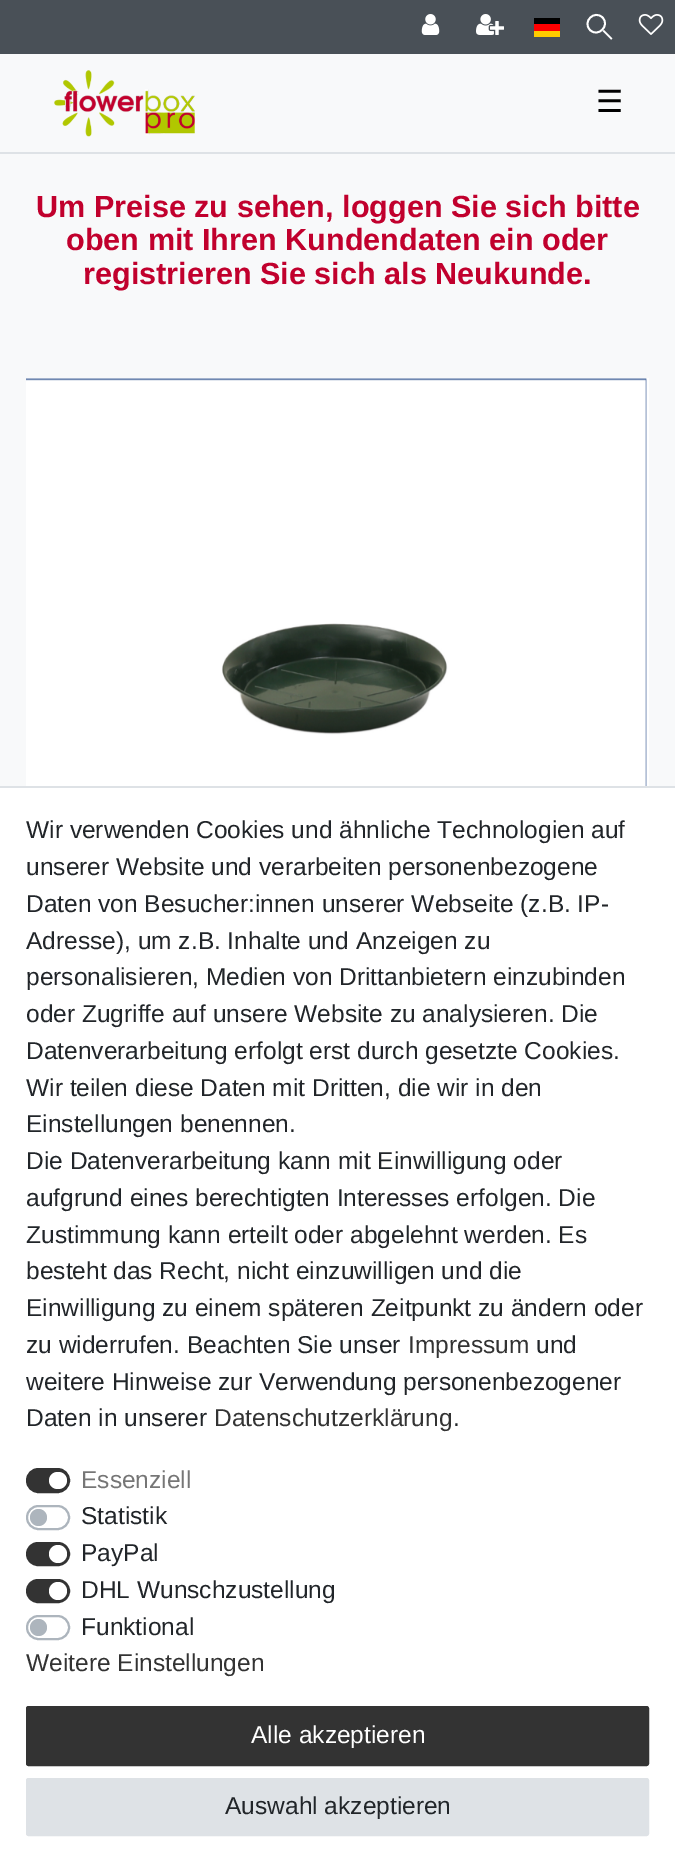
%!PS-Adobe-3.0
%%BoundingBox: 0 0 675 1871
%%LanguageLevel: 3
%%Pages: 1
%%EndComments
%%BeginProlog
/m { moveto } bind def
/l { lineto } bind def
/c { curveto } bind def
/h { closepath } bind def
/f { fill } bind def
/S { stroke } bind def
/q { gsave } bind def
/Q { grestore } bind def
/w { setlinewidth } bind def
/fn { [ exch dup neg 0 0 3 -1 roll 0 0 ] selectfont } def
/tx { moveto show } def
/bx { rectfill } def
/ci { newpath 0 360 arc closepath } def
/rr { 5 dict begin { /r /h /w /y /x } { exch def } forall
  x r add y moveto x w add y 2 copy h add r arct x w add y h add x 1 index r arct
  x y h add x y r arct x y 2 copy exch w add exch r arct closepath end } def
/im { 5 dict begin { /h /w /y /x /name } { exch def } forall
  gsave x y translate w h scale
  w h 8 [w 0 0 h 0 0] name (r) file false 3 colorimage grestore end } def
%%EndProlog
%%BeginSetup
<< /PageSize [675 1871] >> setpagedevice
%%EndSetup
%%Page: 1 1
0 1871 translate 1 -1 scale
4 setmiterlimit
0.973 0.976 0.98 setrgbcolor
0 0 675 1871 bx
0.286 0.314 0.341 setrgbcolor
0 0 675 54 bx
(image0.raw) 421 14 19 21 im
(image1.raw) 476 14 28 21 im
1 0.8 0 setrgbcolor
534 31 26 6 bx
0 setgray
534 18 26 6 bx
1 0 0 setrgbcolor
534 24 26 7 bx
1 setgray
610.5 39 m 593 21.5 l 593 21 l 593 20.5 593.5 20 594 20.5 c 612 38 l 612.5 39 611 40 610.5 39 c h f
0.286 0.314 0.341 setrgbcolor
589.5 30.5 m 580.5 21.5 594 8 603 17 c 612 26 598.5 39.5 589.5 30.5 c h f
1 setgray
1.8 w
590 30 m 582 21.5 594.5 9.5 602.5 17.5 c 610.5 25.5 598 38 590 30 c h S
(image2.raw) 638 14 26 21 im
0.871 0.886 0.902 setrgbcolor
0 152 675 2 bx
(image3.raw) 54 70 141 67 im
/DejaVuSans-Regular 30.6 fn
0 setgray
(☰) 596 112 tx
/LiberationSans-Bold 30.6 fn
0.757 0 0.176 setrgbcolor
(Um Preise zu sehen, loggen Sie sich bitte) 36 217 tx
(oben mit Ihren Kundendaten ein oder) 66 250 tx
(registrieren Sie sich als Neukunde.) 83 284 tx
1 setgray
26 378 623 408 bx
(image4.raw) 26 378 621 408 im
0 788 675 1083 bx
0.871 0.886 0.902 setrgbcolor
0 786 675 2 bx
/LiberationSans-Regular 24.5 fn
0.129 0.145 0.161 setrgbcolor
(Wir verwenden Cookies und ähnliche Technologien auf) 26 838 tx
(unserer Website und verarbeiten personenbezogene) 26 875 tx
(Daten von Besucher:innen unserer Webseite \(z.B. IP-) 26 912 tx
(Adresse\), um z.B. Inhalte und Anzeigen zu) 26 949 tx
(personalisieren, Medien von Drittanbietern einzubinden) 26 985 tx
(oder Zugriffe auf unsere Website zu analysieren. Die) 26 1022 tx
(Datenverarbeitung erfolgt erst durch gesetzte Cookies.) 26 1059 tx
(Wir teilen diese Daten mit Dritten, die wir in den) 26 1096 tx
(Einstellungen benennen.) 26 1132 tx
(Die Datenverarbeitung kann mit Einwilligung oder) 26 1169 tx
(aufgrund eines berechtigten Interesses erfolgen. Die) 26 1206 tx
(Zustimmung kann erteilt oder abgelehnt werden. Es) 26 1243 tx
(besteht das Recht, nicht einzuwilligen und die) 26 1279 tx
(Einwilligung zu einem späteren Zeitpunkt zu ändern oder) 26 1316 tx
(zu widerrufen. Beachten Sie unser) 26 1353 tx
0.2 setgray
(Impressum) 408 1353 tx
0.129 0.145 0.161 setrgbcolor
(und) 536 1353 tx
(weitere Hinweise zur Verwendung personenbezogener) 26 1390 tx
(Daten in unserer) 26 1426 tx
0.2 setgray
(Datenschutzerklärung) 214 1426 tx
0.129 0.145 0.161 setrgbcolor
(.) 453 1426 tx
0.2 setgray
27 1469 42 23 11.5 rr q f Q
2 w
S
0.463 setgray
(Essenziell) 81 1488 tx
1 setgray
49 1472 18 17 8.5 rr f
0.678 0.71 0.741 setrgbcolor
27 1506 42 23 11.5 rr S
0.129 0.145 0.161 setrgbcolor
(Statistik) 81 1524 tx
0.678 0.71 0.741 setrgbcolor
38.5 1517.5 8.5 ci f
0.2 setgray
27 1543 42 22 11 rr q f Q
S
0.129 0.145 0.161 setrgbcolor
(PayPal) 81 1561 tx
1 setgray
58 1554 9 ci f
0.2 setgray
27 1580 42 22 11 rr q f Q
S
0.129 0.145 0.161 setrgbcolor
(DHL Wunschzustellung) 81 1598 tx
1 setgray
58 1591 9 ci f
0.678 0.71 0.741 setrgbcolor
27 1616 42 23 11.5 rr S
0.129 0.145 0.161 setrgbcolor
(Funktional) 81 1635 tx
0.678 0.71 0.741 setrgbcolor
38.5 1627.5 8.5 ci f
0.2 setgray
(Weitere Einstellungen) 26 1671 tx
27 1707 621 58 1.5 rr q f Q
S
1 setgray
(Alle akzeptieren) 251 1743 tx
0.871 0.886 0.902 setrgbcolor
27 1779 621 56 1.5 rr q f Q
S
0.129 0.145 0.161 setrgbcolor
(Auswahl akzeptieren) 225 1814 tx
showpage
%%EOF
